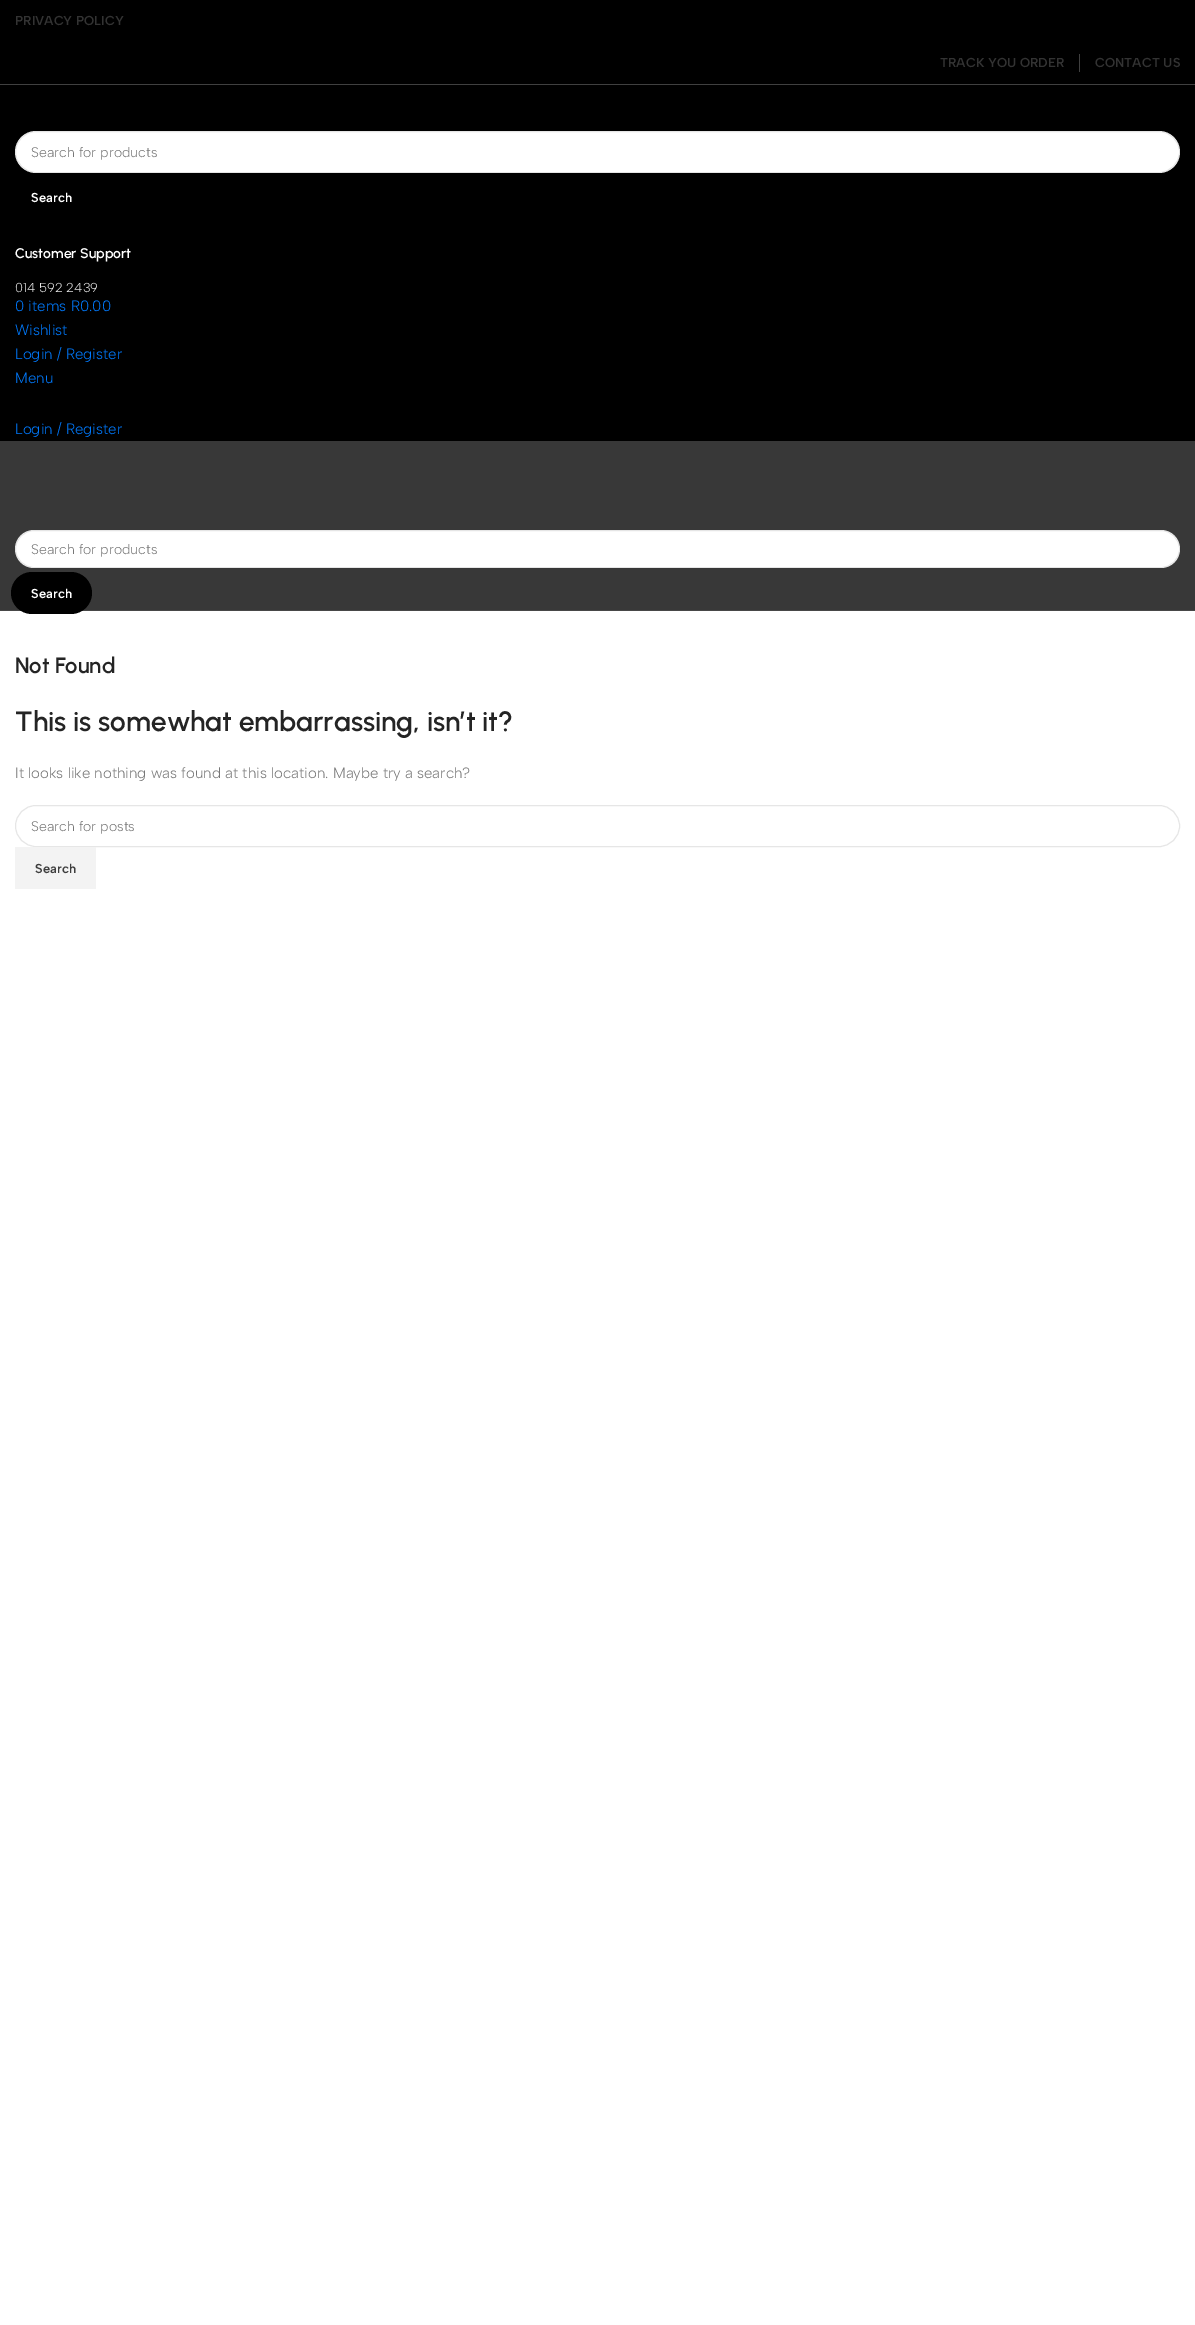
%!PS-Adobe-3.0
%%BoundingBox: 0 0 1195 2325
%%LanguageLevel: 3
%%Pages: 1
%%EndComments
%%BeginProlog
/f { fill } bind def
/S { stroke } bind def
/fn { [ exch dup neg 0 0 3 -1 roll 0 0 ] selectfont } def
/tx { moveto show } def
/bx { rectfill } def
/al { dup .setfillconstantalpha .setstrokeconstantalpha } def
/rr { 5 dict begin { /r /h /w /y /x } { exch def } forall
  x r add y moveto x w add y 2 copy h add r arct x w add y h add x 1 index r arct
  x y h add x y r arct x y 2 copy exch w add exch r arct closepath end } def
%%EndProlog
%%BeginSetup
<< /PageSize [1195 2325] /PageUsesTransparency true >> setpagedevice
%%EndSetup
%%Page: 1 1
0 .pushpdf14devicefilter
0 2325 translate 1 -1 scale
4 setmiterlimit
1 setgray
0 0 1195 2325 bx
0 setgray
0 0 1195 84 bx
0.251 setgray
0 84 1195 1 bx
/AlbertSans-SemiBold 13 fn
0.2 setgray
(PRIVACY POLICY) 15 25 tx
(TRACK YOU ORDER) 940 67 tx
0.251 setgray
1079 54 1 18 bx
0.2 setgray
(CONTACT US) 1095 67 tx
0 setgray
0 85 1195 356 bx
1 setgray
15 131 1165 42 21 rr f
0.1 al
0 setgray
15.5 131.5 1164 41 20.5 rr S
/AlbertSans-Light 14 fn
1 al
0.467 setgray
(Search for products) 31 157 tx
/AlbertSans-SemiBold 13 fn
1 setgray
(Search) 31 202 tx
/Urbanist-SemiBold 14 fn
(Customer Support) 15 258 tx
/AlbertSans-Light 13 fn
0.902 setgray
(014 592 2439) 15 292 tx
/AlbertSans-Light 15 fn
0 0.478 1 setrgbcolor
(0 items R0.00) 15 311 tx
(Wishlist) 15 335 tx
(Login / Register) 15 359 tx
(Menu) 15 383 tx
(Login / Register) 15 434 tx
0.22 setgray
0 441 1195 169 bx
0.278 setgray
0 610 1195 1 bx
1 setgray
15 530 1165 38 19 rr f
0.1 al
0 setgray
15.5 530.5 1164 37 18.5 rr S
/AlbertSans-Light 14 fn
1 al
0.467 setgray
(Search for products) 31 554 tx
0 setgray
11 572 81 42 21 rr f
/AlbertSans-SemiBold 13 fn
1 setgray
(Search) 31 598 tx
/Urbanist-SemiBold 22 fn
0.141 setgray
(Not Found) 15 673 tx
/Urbanist-SemiBold 28 fn
(This is somewhat embarrassing, isn’t it?) 15 731 tx
/AlbertSans-Light 15 fn
0.467 setgray
(It looks like nothing was found at this location. Maybe try a search?) 15 778 tx
0.902 setgray
15.5 805.5 1164 41 20.5 rr S
/AlbertSans-Light 14 fn
0.467 setgray
(Search for posts) 31 831 tx
0.953 setgray
15 847 81 42 bx
/AlbertSans-SemiBold 13 fn
0.243 setgray
(Search) 35 873 tx
.poppdf14devicefilter showpage
%%EOF
